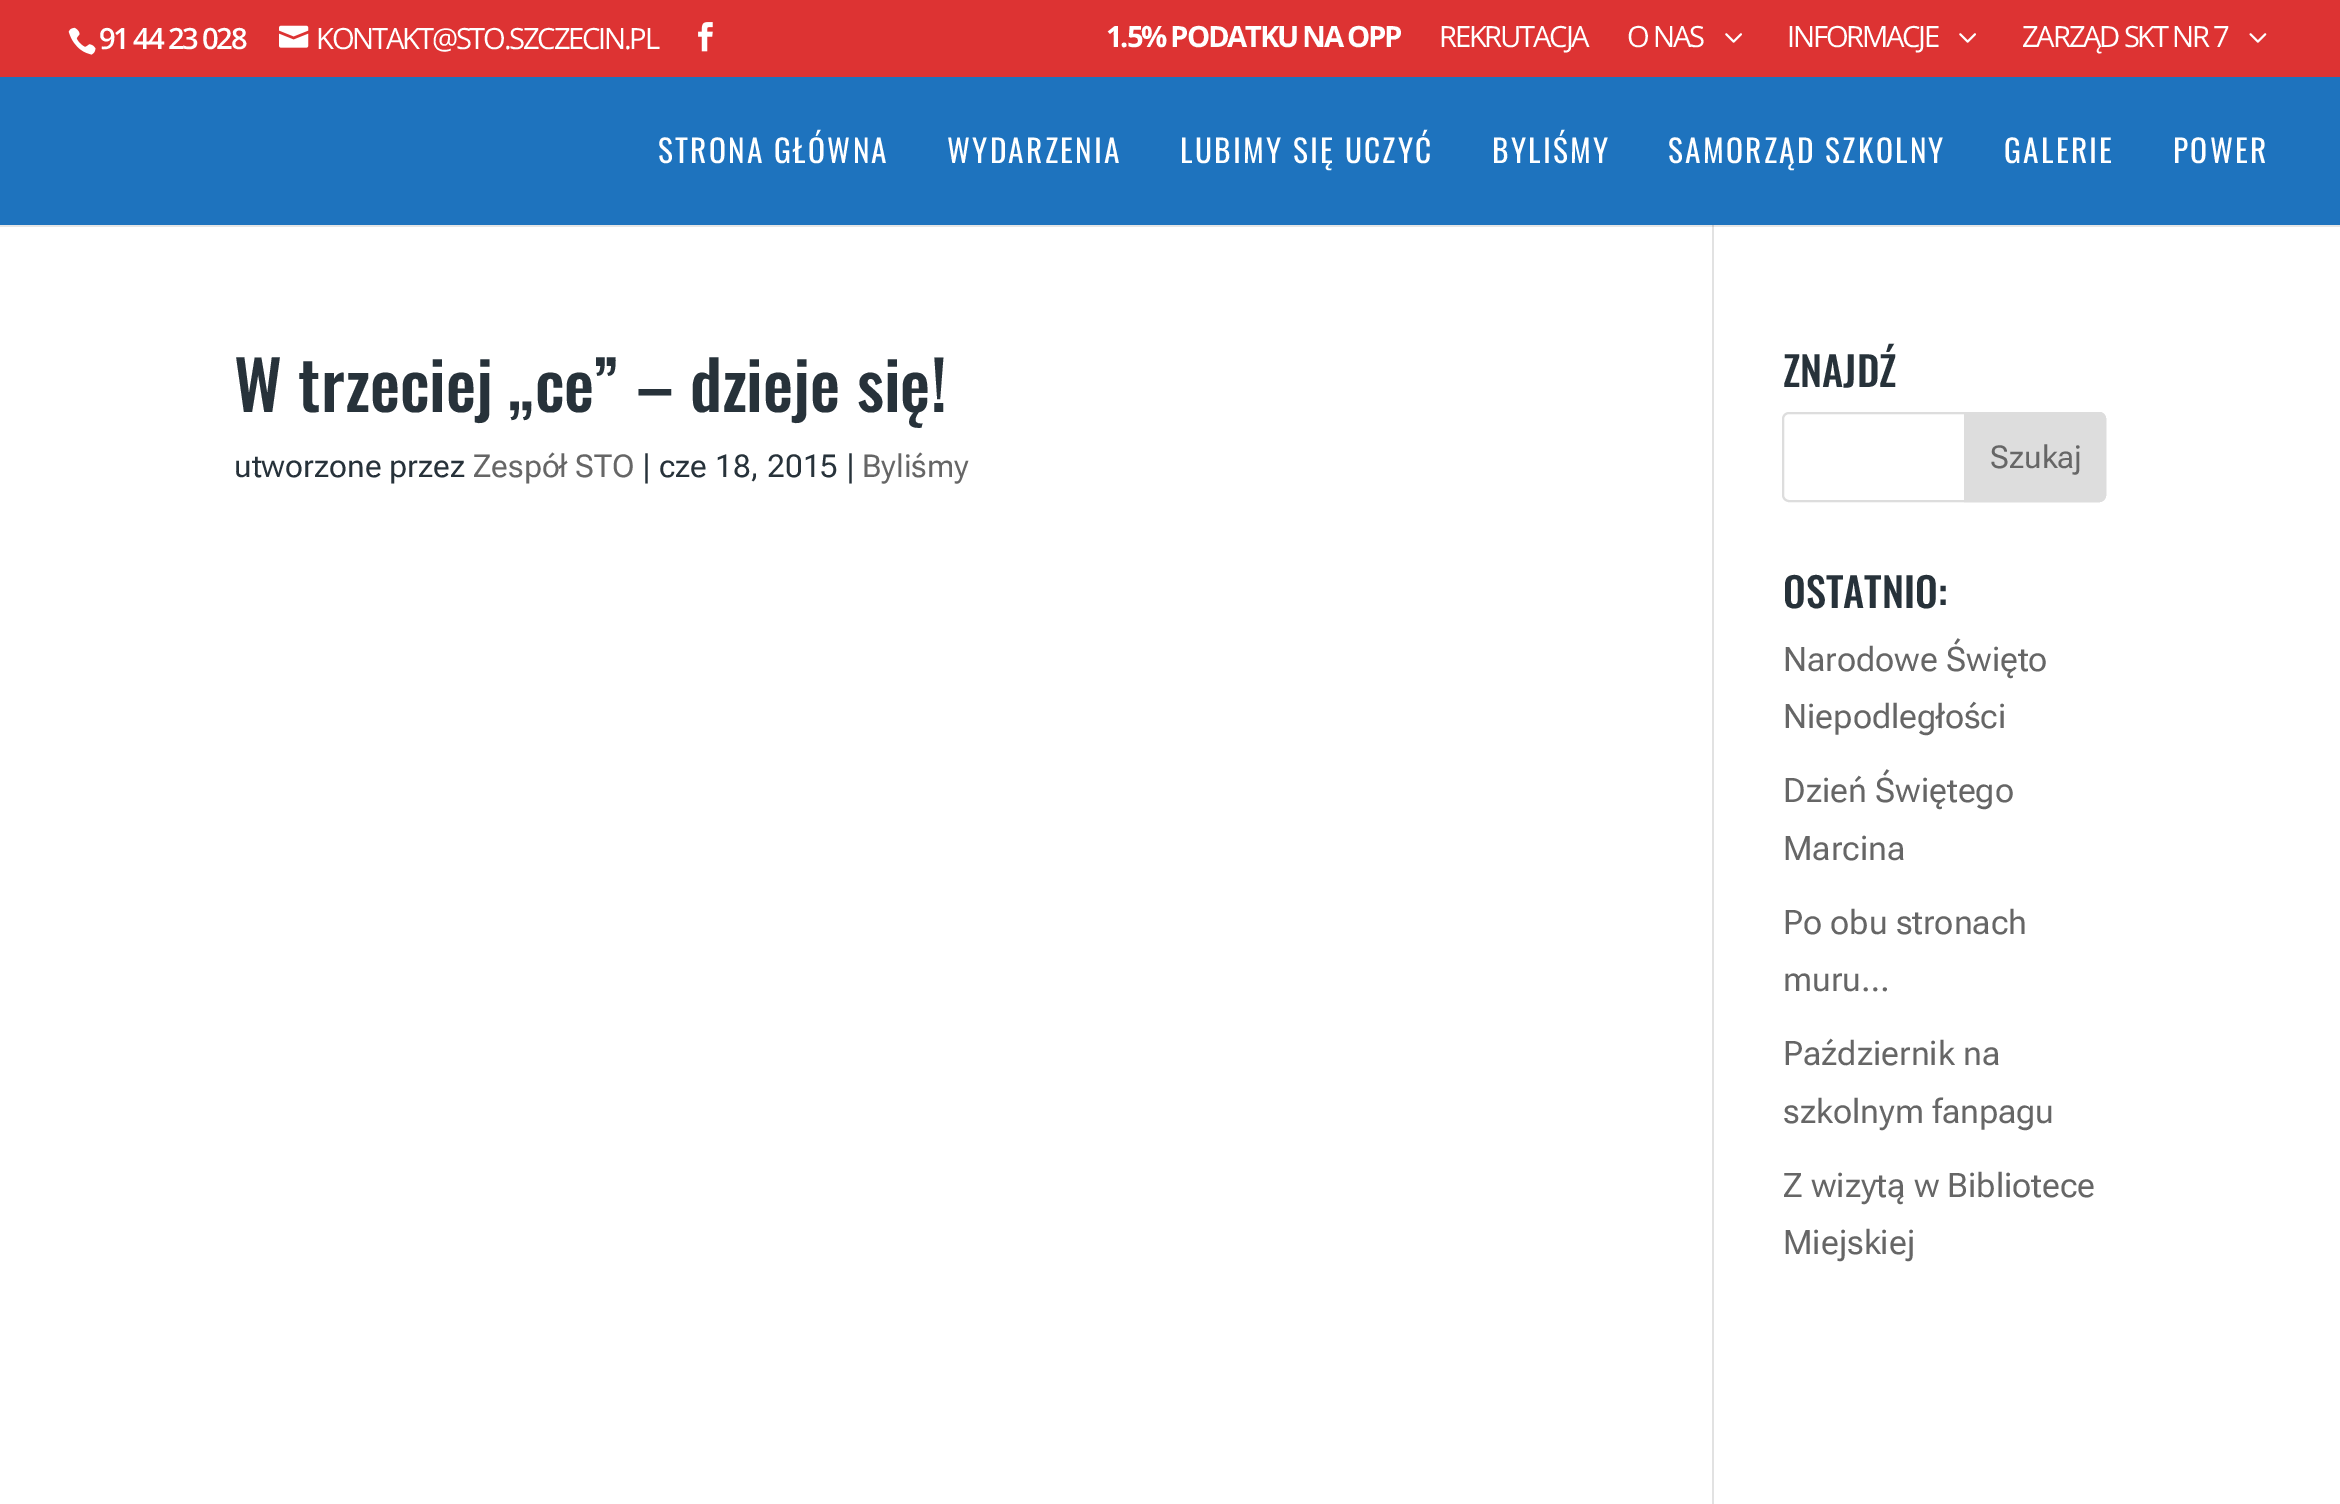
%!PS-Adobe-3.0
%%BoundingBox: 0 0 2340 1504
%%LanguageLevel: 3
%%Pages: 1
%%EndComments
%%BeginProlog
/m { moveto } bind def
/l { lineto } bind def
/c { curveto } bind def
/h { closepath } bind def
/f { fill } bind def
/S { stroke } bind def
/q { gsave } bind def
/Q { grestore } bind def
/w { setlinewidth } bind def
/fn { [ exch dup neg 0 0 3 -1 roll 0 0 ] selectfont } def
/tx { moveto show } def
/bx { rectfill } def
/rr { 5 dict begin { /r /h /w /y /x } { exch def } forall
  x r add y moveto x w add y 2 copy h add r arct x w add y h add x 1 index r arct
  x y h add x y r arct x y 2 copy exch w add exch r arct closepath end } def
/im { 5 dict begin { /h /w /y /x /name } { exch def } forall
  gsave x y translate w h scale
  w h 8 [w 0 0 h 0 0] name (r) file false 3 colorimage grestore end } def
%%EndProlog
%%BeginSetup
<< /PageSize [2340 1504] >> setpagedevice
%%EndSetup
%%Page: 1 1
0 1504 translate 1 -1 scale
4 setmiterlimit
1 setgray
0 0 2340 1504 bx
0.902 setgray
0 225 2340 2 bx
0.867 0.2 0.2 setrgbcolor
0 0 2340 77 bx
(image0.raw) 68 27 28 28 im
/OpenSans-SemiBold 29.25 fn
1 setgray
99 49 m -2.25 0 (91 44 23 028) ashow
(image1.raw) 279 25 30 23 im
/OpenSans-Regular 29.25 fn
316 49 m -2.25 0 (KONTAKT@STO.SZCZECIN.PL) ashow
(image2.raw) 698 22 15 30 im
/OpenSans-Bold 29.25 fn
1106 47 m -2.25 0 (1.5% PODATKU NA OPP) ashow
/OpenSans-Regular 29.25 fn
1439 47 m -2.25 0 (REKRUTACJA) ashow
1627 47 m -2.25 0 (O NAS) ashow
(image3.raw) 1725 33 17 10 im
1787 47 m -2.25 0 (INFORMACJE) ashow
(image3.raw) 1959 33 17 10 im
2022 47 m -2.25 0 (ZARZĄD SKT NR 7) ashow
(image4.raw) 2249 33 18 10 im
0.118 0.451 0.745 setrgbcolor
0 77 2340 148 bx
/Oswald-Regular 31.5 fn
1 setgray
658 163 m 2.25 0 (STRONA GŁÓWNA) ashow
947 163 m 2.25 0 (WYDARZENIA) ashow
1180 163 m 2.25 0 (LUBIMY SIĘ UCZYĆ) ashow
1492 163 m 2.25 0 (BYLIŚMY) ashow
1668 163 m 2.25 0 (SAMORZĄD SZKOLNY) ashow
2004 163 m 2.25 0 (GALERIE) ashow
2173 163 m 2.25 0 (POWER) ashow
0.886 setgray
1712 227 2 1277 bx
0.796 setgray
1712 225 2 2 bx
/Oswald-Medium 67.5 fn
0.153 0.196 0.227 setrgbcolor
(W trzeciej „ce” – dzieje się!) 234 412 tx
/RobotoFlex-Regular 31.5 fn
(utworzone przez) 234 477 tx
0.4 setgray
(Zespół STO) 473 477 tx
0.153 0.196 0.227 setrgbcolor
(| cze 18, 2015 |) 642 477 tx
0.4 setgray
(Byliśmy) 862 477 tx
/Oswald-Medium 40.5 fn
0.153 0.196 0.227 setrgbcolor
(ZNAJDŹ) 1783 387 tx
0.867 setgray
2 w
1783 413 322 88 6 rr S
1965 413 m 2099 413 l 2102.5 413 2105 415.5 2105 419 c 2105 495 l 2105 498.5 2102.5 501 2099 501 c 1965 501 l h q f Q
S
/RobotoFlex-Regular 31.5 fn
0.4 setgray
(Szukaj) 1990 468 tx
/Oswald-Medium 40.5 fn
0.153 0.196 0.227 setrgbcolor
(OSTATNIO:) 1783 608 tx
/RobotoFlex-Regular 33.75 fn
0.4 setgray
(Narodowe Święto) 1783 671 tx
(Niepodległości) 1783 728 tx
(Dzień Świętego) 1783 802 tx
(Marcina) 1783 860 tx
(Po obu stronach) 1783 934 tx
(muru…) 1783 991 tx
(Październik na) 1783 1065 tx
(szkolnym fanpagu) 1783 1123 tx
(Z wizytą w Bibliotece) 1783 1197 tx
(Miejskiej) 1783 1254 tx
showpage
%%EOF
